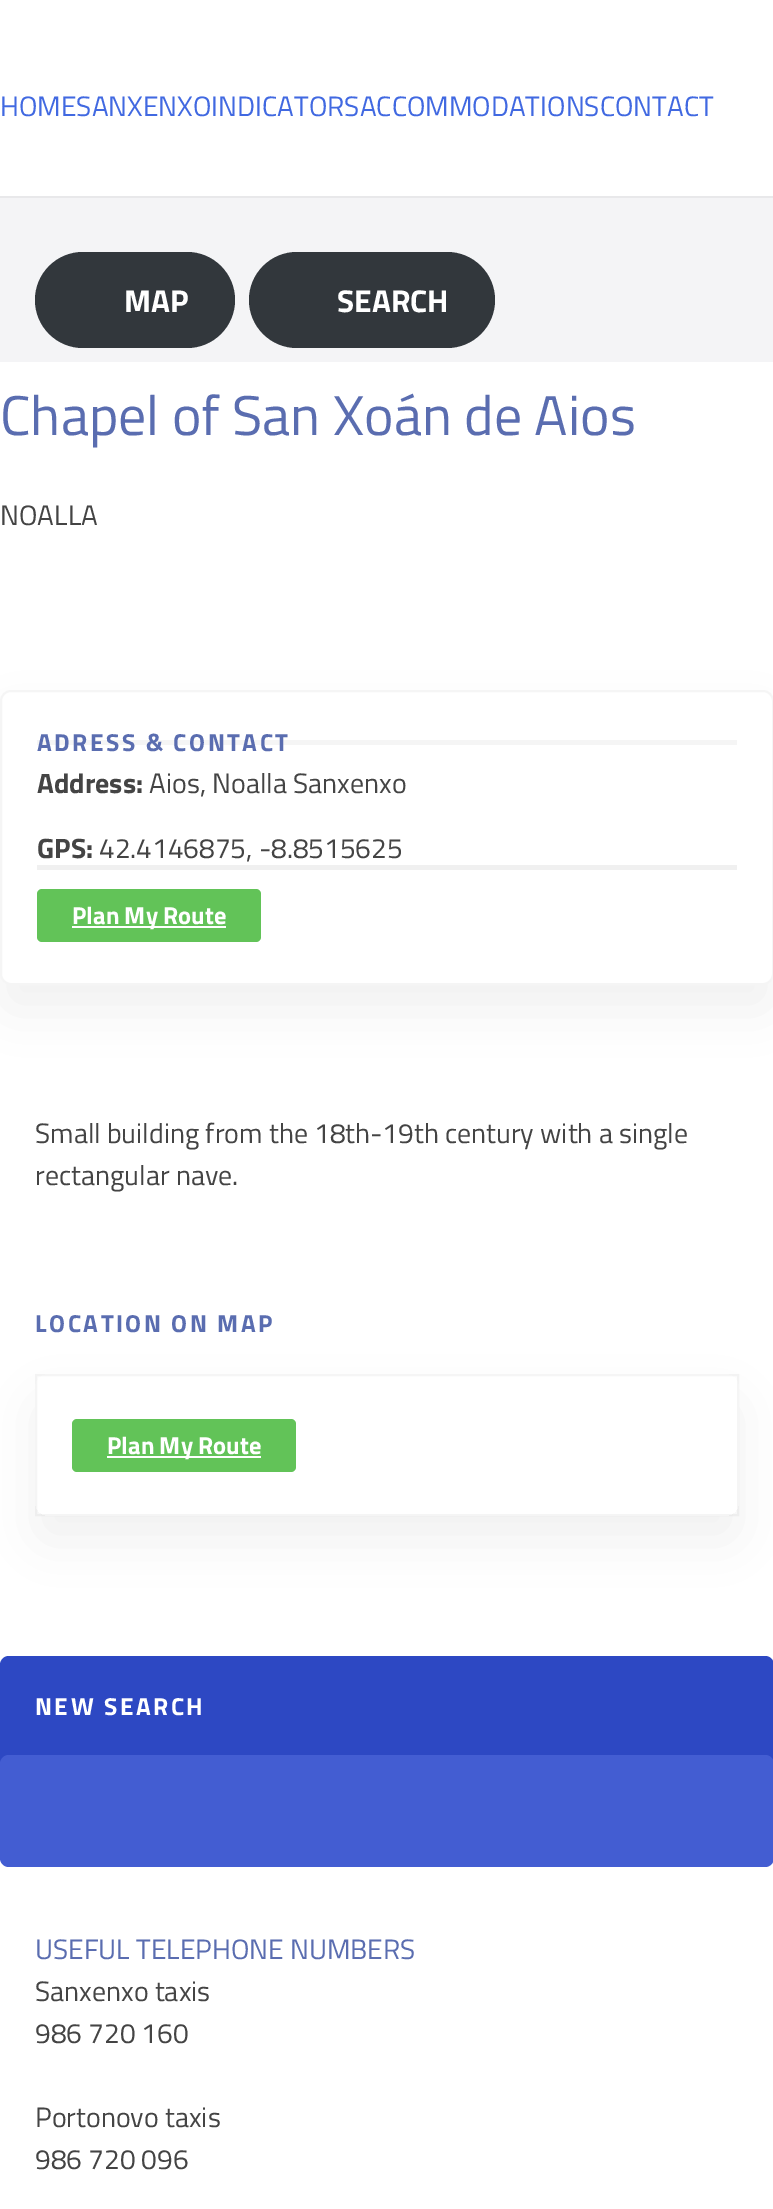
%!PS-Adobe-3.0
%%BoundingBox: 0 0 773 2209
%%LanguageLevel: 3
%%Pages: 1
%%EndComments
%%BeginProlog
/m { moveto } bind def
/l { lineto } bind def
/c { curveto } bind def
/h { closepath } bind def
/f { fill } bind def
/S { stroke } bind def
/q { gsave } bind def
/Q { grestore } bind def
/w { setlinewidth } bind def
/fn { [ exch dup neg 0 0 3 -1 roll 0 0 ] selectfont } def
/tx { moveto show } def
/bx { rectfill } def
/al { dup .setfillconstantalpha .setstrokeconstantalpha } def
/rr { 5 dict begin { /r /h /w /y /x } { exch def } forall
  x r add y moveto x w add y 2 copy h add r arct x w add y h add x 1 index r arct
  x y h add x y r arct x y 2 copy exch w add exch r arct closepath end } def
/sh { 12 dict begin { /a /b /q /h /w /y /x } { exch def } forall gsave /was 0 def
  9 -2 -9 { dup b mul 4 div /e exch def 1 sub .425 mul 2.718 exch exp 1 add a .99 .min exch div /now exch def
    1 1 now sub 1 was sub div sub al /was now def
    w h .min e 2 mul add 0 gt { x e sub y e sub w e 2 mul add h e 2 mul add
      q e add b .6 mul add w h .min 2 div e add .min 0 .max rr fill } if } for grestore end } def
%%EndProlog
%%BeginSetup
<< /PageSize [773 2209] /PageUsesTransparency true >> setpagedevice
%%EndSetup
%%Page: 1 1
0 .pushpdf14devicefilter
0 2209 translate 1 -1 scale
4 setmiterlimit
1 setgray
0 0 773 2209 bx
/TitilliumWeb-Regular 28 fn
0.255 0.412 0.882 setrgbcolor
(HOMESANXENXOINDICATORSACCOMMODATIONSCONTACT) 0 116 tx
0.957 0.957 0.965 setrgbcolor
0 198 773 164 bx
0.91 0.91 0.918 setrgbcolor
0 196 773 2 bx
0.196 0.216 0.235 setrgbcolor
35 252 200 96 48 rr f
/TitilliumWeb-Bold 31.5 fn
1 setgray
(MAP) 124 312 tx
0.196 0.216 0.235 setrgbcolor
249 252 246 96 48 rr f
1 setgray
(SEARCH) 337 312 tx
/TitilliumWeb-Regular 56 fn
0.353 0.427 0.69 setrgbcolor
(Chapel of San Xoán de Aios) 0 435 tx
/TitilliumWeb-Regular 28 fn
0.267 setgray
(NOALLA) 0 525 tx
q
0 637 m 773 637 l 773 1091 l 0 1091 l h 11 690 m 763 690 l 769 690 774 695 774 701 c 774 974 l 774 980 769 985 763 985 c 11 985 l 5 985 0 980 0 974 c 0 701 l 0 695 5 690 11 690 c h eoclip newpath
0 setgray
0 716 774 296 11 26 0.05 sh
Q
0.961 setgray
2 w
1 691 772 293 10 rr S
37 740 700 5 bx
/TitilliumWeb-Bold 24.5 fn
0.353 0.427 0.69 setrgbcolor
37 751 m 2.5 0 (ADRESS & CONTACT) ashow
/TitilliumWeb-Bold 28 fn
0.267 setgray
(Address:) 37 793 tx
/TitilliumWeb-Regular 28 fn
(Aios, Noalla Sanxenxo) 149 793 tx
/TitilliumWeb-Bold 28 fn
(GPS:) 37 858 tx
/TitilliumWeb-Regular 28 fn
(42.4146875, -8.8515625) 99 858 tx
0.941 setgray
37 865 700 5 bx
0.384 0.765 0.345 setrgbcolor
37 889 224 53 5 rr f
1 setgray
72 926 154 2 bx
/TitilliumWeb-Bold 24.5 fn
(Plan My Route) 72 924 tx
/TitilliumWeb-Regular 28 fn
0.267 setgray
(Small building from the 18th-19th century with a single) 35 1143 tx
(rectangular nave.) 35 1185 tx
/TitilliumWeb-Bold 24.5 fn
0.353 0.427 0.69 setrgbcolor
35 1332 m 2.5 0 (LOCATION ON MAP) ashow
q
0 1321 m 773 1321 l 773 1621 l 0 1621 l h 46 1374 m 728 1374 l 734 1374 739 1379 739 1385 c 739 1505 l 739 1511 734 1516 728 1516 c 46 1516 l 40 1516 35 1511 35 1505 c 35 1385 l 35 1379 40 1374 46 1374 c h eoclip newpath
0 setgray
35 1400 704 142 11 26 0.05 sh
Q
0.04 al
0 setgray
36 1375 702 140 rectstroke
1 al
0.384 0.765 0.345 setrgbcolor
72 1419 224 53 5 rr f
1 setgray
107 1456 154 2 bx
(Plan My Route) 107 1454 tx
0.176 0.282 0.765 setrgbcolor
0 1656 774 113 9 rr f
1 setgray
35 1715 m 2.5 0 (NEW SEARCH) ashow
0.263 0.365 0.824 setrgbcolor
0 1755 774 112 9 rr f
/TitilliumWeb-Regular 28 fn
0.353 0.427 0.69 setrgbcolor
(USEFUL TELEPHONE NUMBERS) 35 1959 tx
0.267 setgray
(Sanxenxo taxis) 35 2001 tx
(986 720 160) 35 2043 tx
(Portonovo taxis) 35 2127 tx
(986 720 096) 35 2169 tx
.poppdf14devicefilter showpage
%%EOF
